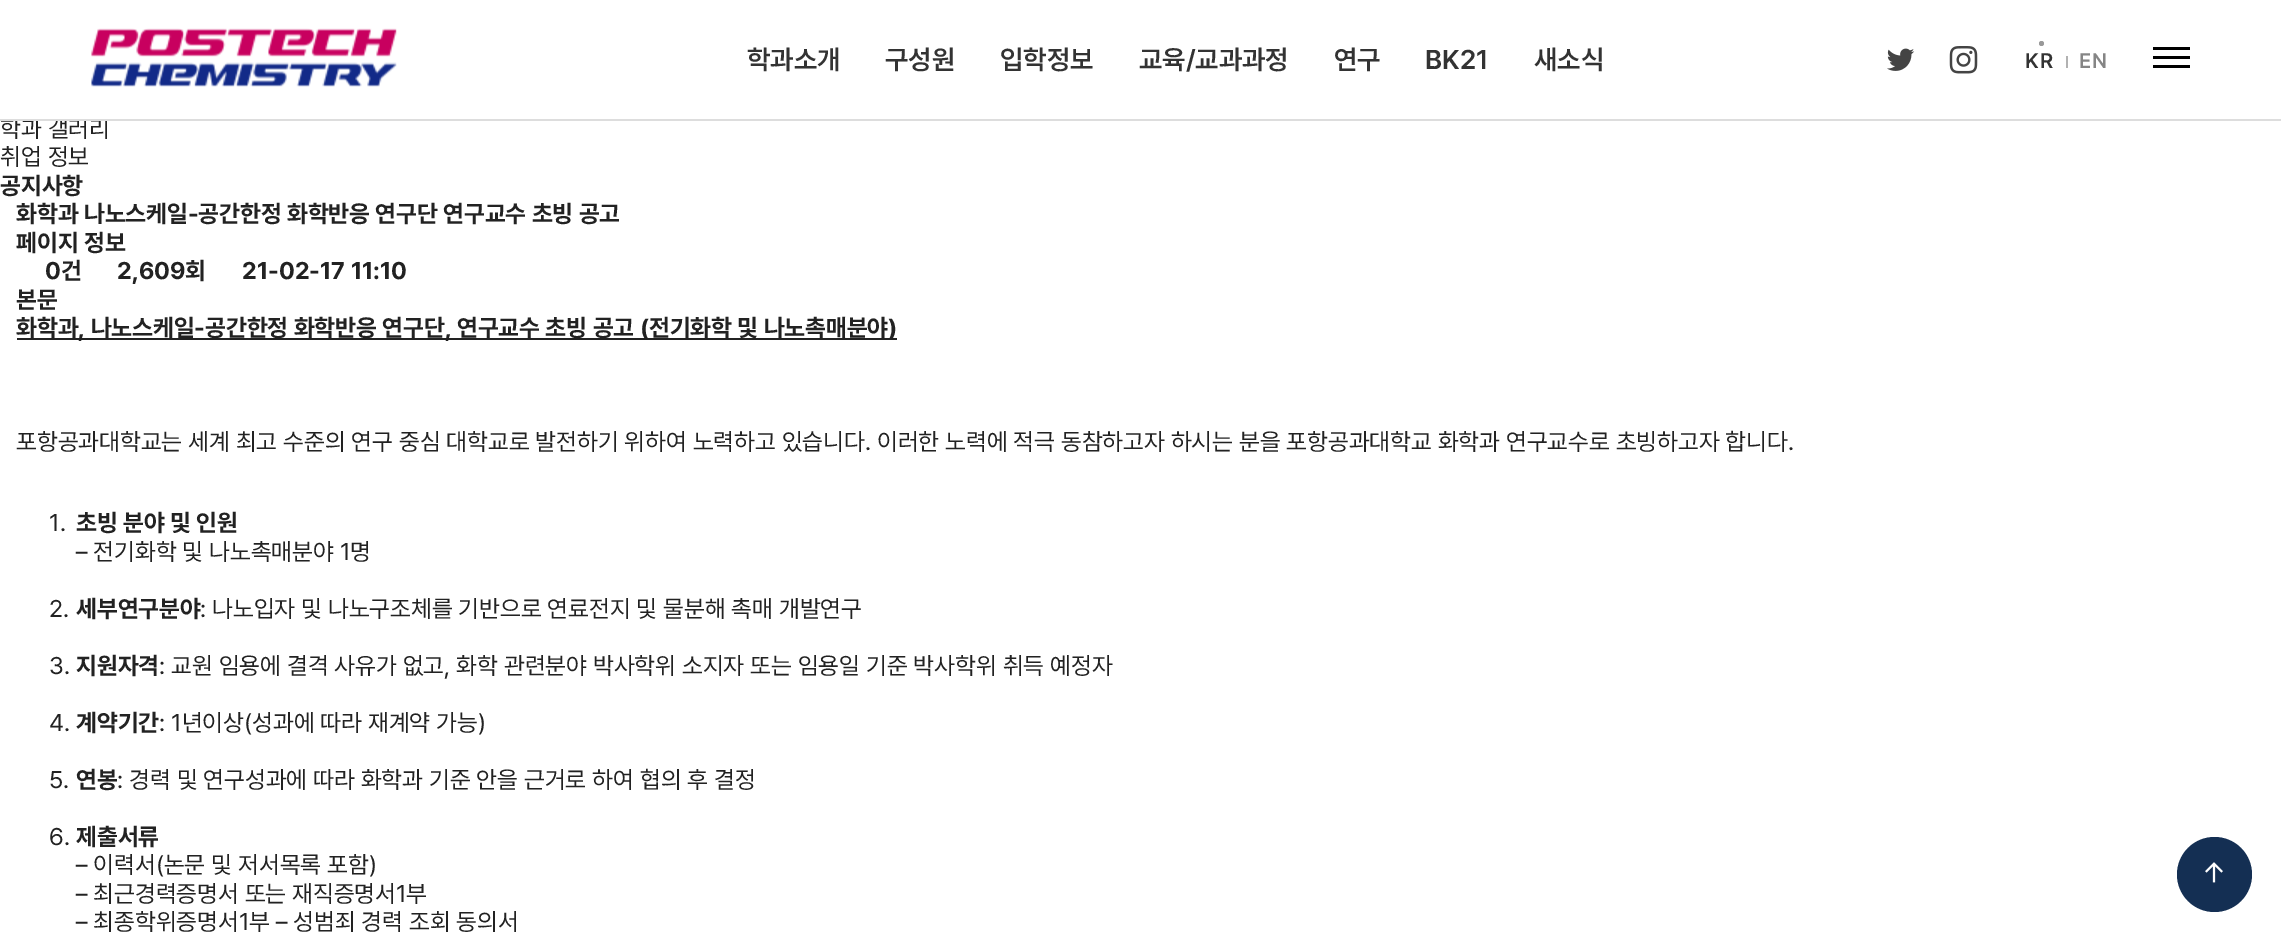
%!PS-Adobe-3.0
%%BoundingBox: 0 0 2281 942
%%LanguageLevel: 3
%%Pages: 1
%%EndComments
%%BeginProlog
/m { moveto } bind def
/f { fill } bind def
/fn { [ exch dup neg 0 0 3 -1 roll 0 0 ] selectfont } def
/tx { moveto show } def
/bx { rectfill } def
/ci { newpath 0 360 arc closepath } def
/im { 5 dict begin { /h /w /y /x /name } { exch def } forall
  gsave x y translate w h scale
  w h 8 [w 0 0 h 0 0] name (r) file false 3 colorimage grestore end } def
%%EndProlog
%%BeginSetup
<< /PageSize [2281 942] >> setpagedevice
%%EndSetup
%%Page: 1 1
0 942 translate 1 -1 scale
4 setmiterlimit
1 setgray
0 0 2281 942 bx
/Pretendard-Regular 24 fn
0.133 setgray
(학과 갤러리) 0 137 tx
1 setgray
6 118 102 1 bx
0.867 setgray
0 119 2281 2 bx
(image0.raw) 91 28 306 59 im
/Pretendard-SemiBold 27 fn
0.2 setgray
(학과소개) 747 69 tx
(구성원) 885 69 tx
(입학정보) 1000 69 tx
(교육/교과과정) 1139 69 tx
(연구) 1334 69 tx
(BK21) 1425 69 tx
(새소식) 1534 69 tx
(image1.raw) 1887 48 28 23 im
(image2.raw) 1949 46 29 28 im
0.6 setgray
2041.5 43.5 2.5 ci f
/Pretendard-SemiBold 21 fn
0.2 setgray
2025 68 m 1 0 (KR) ashow
0.698 setgray
2066 56 2 12 bx
0.522 setgray
2079 68 m 1 0 (EN) ashow
0 setgray
2153 47 37 3 bx
2153 56 37 3 bx
2153 65 37 3 bx
/Pretendard-Regular 24 fn
0.133 setgray
(취업 정보) 0 165 tx
/Pretendard-Bold 24 fn
(공지사항) 0 194 tx
(화학과 나노스케일-공간한정 화학반응 연구단 연구교수 초빙 공고) 16 222 tx
(페이지 정보) 16 251 tx
(0건) 45 279 tx
(2,609회) 117 279 tx
(21-02-17 11:10) 242 279 tx
(본문) 16 308 tx
17 338 880 2 bx
(화학과, 나노스케일-공간한정 화학반응 연구단, 연구교수 초빙 공고 \(전기화학 및 나노촉매분야\)) 16 336 tx
/Pretendard-Regular 24 fn
(포항공과대학교는 세계 최고 수준의 연구 중심 대학교로 발전하기 위하여 노력하고 있습니다. 이러한 노력에 적극 동참하고자 하시는 분을 포항공과대학교 화학과 연구교수로 초빙하고자 합니다.) 16 450 tx
(1.) 49 531 tx
/Pretendard-Bold 24 fn
(초빙 분야 및 인원) 76 531 tx
/Pretendard-Regular 24 fn
(– 전기화학 및 나노촉매분야 1명) 76 560 tx
(2.) 49 617 tx
/Pretendard-Bold 24 fn
(세부연구분야) 76 617 tx
/Pretendard-Regular 24 fn
(: 나노입자 및 나노구조체를 기반으로 연료전지 및 물분해 촉매 개발연구) 200 617 tx
(3.) 49 674 tx
/Pretendard-Bold 24 fn
(지원자격) 76 674 tx
/Pretendard-Regular 24 fn
(: 교원 임용에 결격 사유가 없고, 화학 관련분야 박사학위 소지자 또는 임용일 기준 박사학위 취득 예정자) 159 674 tx
(4.) 49 731 tx
/Pretendard-Bold 24 fn
(계약기간) 76 731 tx
/Pretendard-Regular 24 fn
(: 1년이상\(성과에 따라 재계약 가능\)) 159 731 tx
(5.) 49 788 tx
/Pretendard-Bold 24 fn
(연봉) 76 788 tx
/Pretendard-Regular 24 fn
(: 경력 및 연구성과에 따라 화학과 기준 안을 근거로 하여 협의 후 결정) 117 788 tx
(6.) 49 845 tx
/Pretendard-Bold 24 fn
(제출서류) 76 845 tx
/Pretendard-Regular 24 fn
(– 이력서\(논문 및 저서목록 포함\)) 76 873 tx
(– 최근경력증명서 또는 재직증명서1부) 76 902 tx
(– 최종학위증명서1부 – 성범죄 경력 조회 동의서) 76 930 tx
0.078 0.184 0.325 setrgbcolor
2214.5 874.5 37.5 ci f
(image3.raw) 2205 862 18 21 im
showpage
%%EOF
